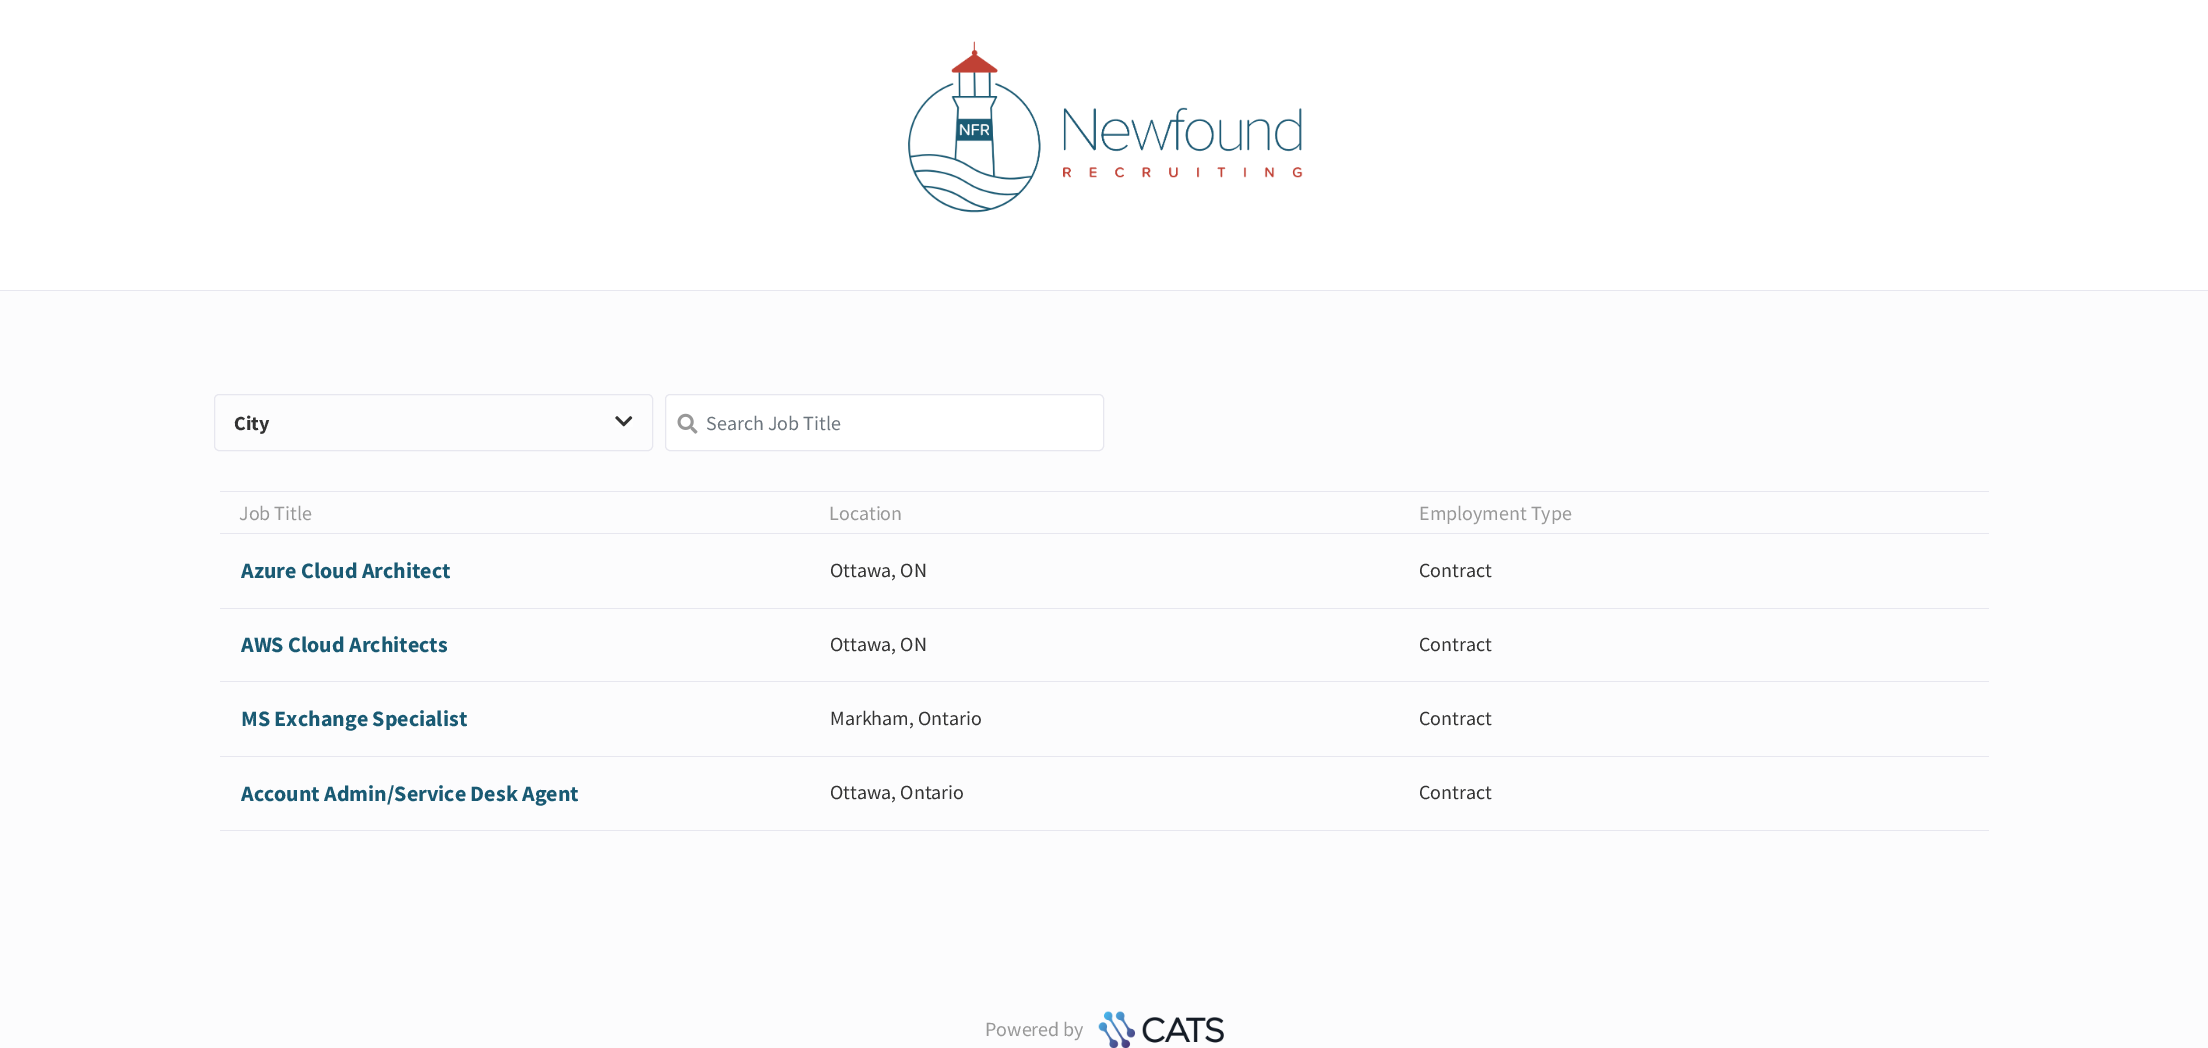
%!PS-Adobe-3.0
%%BoundingBox: 0 0 2208 1048
%%LanguageLevel: 3
%%Pages: 1
%%EndComments
%%BeginProlog
/f { fill } bind def
/S { stroke } bind def
/q { gsave } bind def
/Q { grestore } bind def
/fn { [ exch dup neg 0 0 3 -1 roll 0 0 ] selectfont } def
/tx { moveto show } def
/bx { rectfill } def
/rr { 5 dict begin { /r /h /w /y /x } { exch def } forall
  x r add y moveto x w add y 2 copy h add r arct x w add y h add x 1 index r arct
  x y h add x y r arct x y 2 copy exch w add exch r arct closepath end } def
/im { 5 dict begin { /h /w /y /x /name } { exch def } forall
  gsave x y translate w h scale
  w h 8 [w 0 0 h 0 0] name (r) file false 3 colorimage grestore end } def
%%EndProlog
%%BeginSetup
<< /PageSize [2208 1048] >> setpagedevice
%%EndSetup
%%Page: 1 1
0 1048 translate 1 -1 scale
4 setmiterlimit
0.988 0.988 0.992 setrgbcolor
0 0 2208 1048 bx
1 setgray
0 0 2208 290 bx
(image0.raw) 908 41 395 172 im
0.906 0.906 0.937 setrgbcolor
0 290 2208 1 bx
214.5 394.5 438 56 4.5 rr S
/SourceSansPro-Bold 20 fn
0.2 setgray
(City) 234 430 tx
(image1.raw) 615 416 18 11 im
1 setgray
665.5 394.5 438 56 4.5 rr q f Q
0.906 0.906 0.937 setrgbcolor
S
(image2.raw) 677 413 21 21 im
/SourceSansPro-Regular 20 fn
0.424 0.459 0.49 setrgbcolor
(Search Job Title) 706 430 tx
0.906 0.906 0.937 setrgbcolor
220 491 1769 1 bx
0.596 setgray
(Job Title) 239 520 tx
(Location) 829 520 tx
(Employment Type) 1419 520 tx
0.906 0.906 0.937 setrgbcolor
220 533 1769 1 bx
/SourceSansPro-Bold 22 fn
0.098 0.353 0.451 setrgbcolor
(Azure Cloud Architect) 241 578 tx
/SourceSansPro-Regular 20 fn
0.2 setgray
(Ottawa, ON) 830 577 tx
(Contract) 1419 577 tx
0.906 0.906 0.937 setrgbcolor
220 608 1769 1 bx
/SourceSansPro-Bold 22 fn
0.098 0.353 0.451 setrgbcolor
(AWS Cloud Architects) 241 652 tx
/SourceSansPro-Regular 20 fn
0.2 setgray
(Ottawa, ON) 830 651 tx
(Contract) 1419 651 tx
0.906 0.906 0.937 setrgbcolor
220 681 1769 1 bx
/SourceSansPro-Bold 22 fn
0.098 0.353 0.451 setrgbcolor
(MS Exchange Specialist) 241 726 tx
/SourceSansPro-Regular 20 fn
0.2 setgray
(Markham, Ontario) 830 725 tx
(Contract) 1419 725 tx
0.906 0.906 0.937 setrgbcolor
220 756 1769 1 bx
220 830 1769 1 bx
/SourceSansPro-Bold 22 fn
0.098 0.353 0.451 setrgbcolor
(Account Admin/Service Desk Agent) 241 801 tx
/SourceSansPro-Regular 20 fn
0.2 setgray
(Ottawa, Ontario) 830 799 tx
(Contract) 1419 799 tx
0.596 setgray
(Powered by) 985 1036 tx
(image3.raw) 1098 1011 126 37 im
showpage
%%EOF
